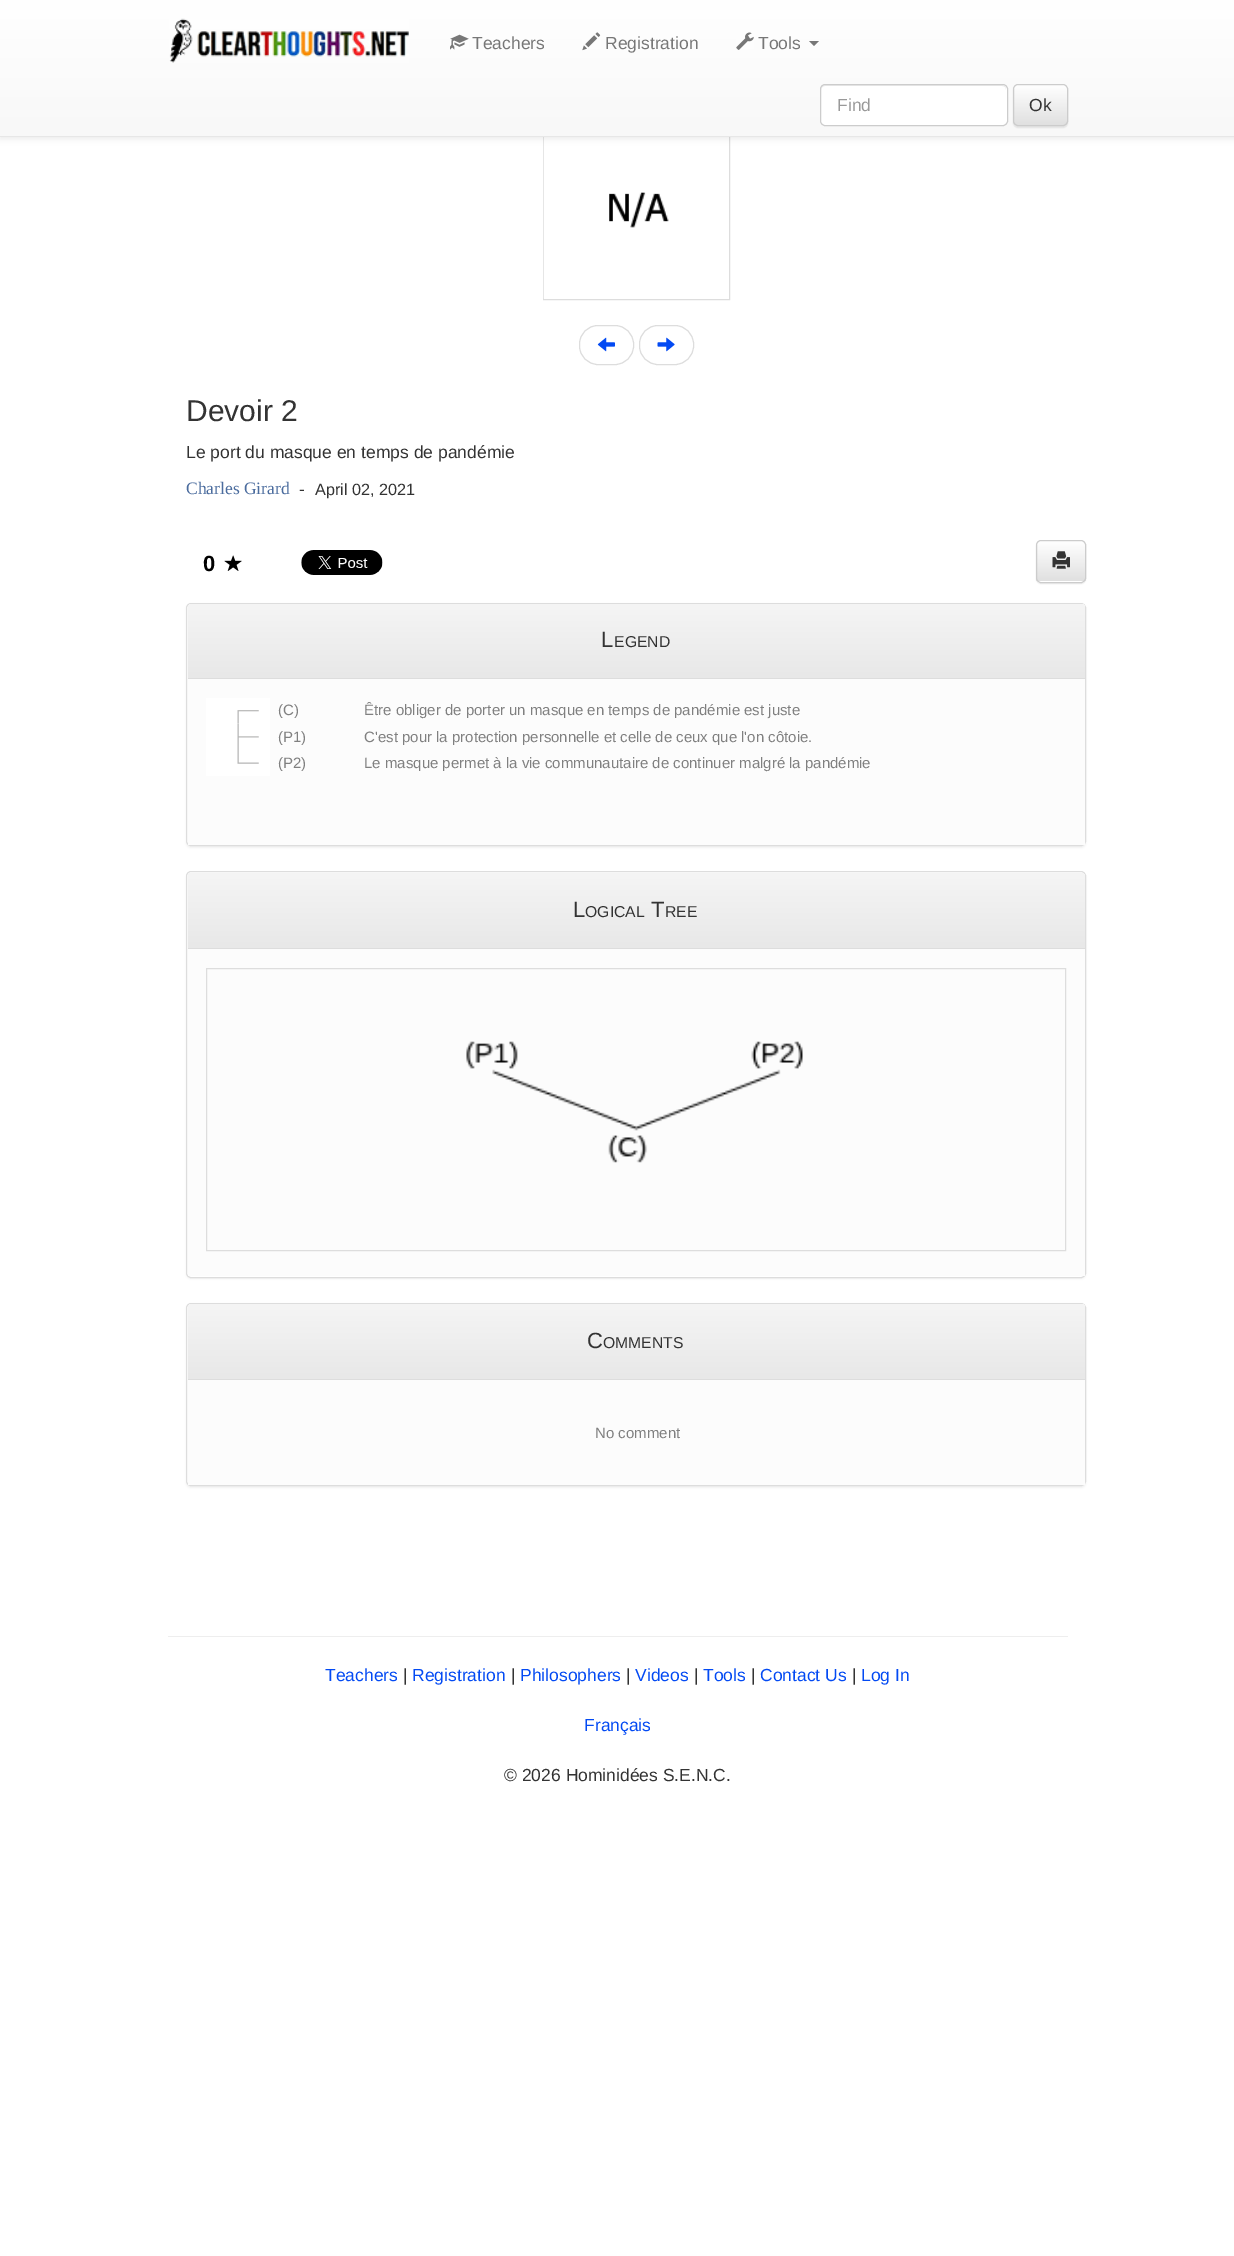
%!PS-Adobe-3.0
%%BoundingBox: 0 0 1234 2256
%%LanguageLevel: 3
%%Pages: 1
%%EndComments
%%BeginProlog
/m { moveto } bind def
/l { lineto } bind def
/c { curveto } bind def
/h { closepath } bind def
/f { fill } bind def
/S { stroke } bind def
/q { gsave } bind def
/Q { grestore } bind def
/fn { [ exch dup neg 0 0 3 -1 roll 0 0 ] selectfont } def
/tx { moveto show } def
/bx { rectfill } def
/al { dup .setfillconstantalpha .setstrokeconstantalpha } def
/rr { 5 dict begin { /r /h /w /y /x } { exch def } forall
  x r add y moveto x w add y 2 copy h add r arct x w add y h add x 1 index r arct
  x y h add x y r arct x y 2 copy exch w add exch r arct closepath end } def
/sh { 12 dict begin { /a /b /q /h /w /y /x } { exch def } forall gsave /was 0 def
  9 -2 -9 { dup b mul 4 div /e exch def 1 sub .425 mul 2.718 exch exp 1 add a .99 .min exch div /now exch def
    1 1 now sub 1 was sub div sub al /was now def
    w h .min e 2 mul add 0 gt { x e sub y e sub w e 2 mul add h e 2 mul add
      q e add b .6 mul add w h .min 2 div e add .min 0 .max rr fill } if } for grestore end } def
/im { 5 dict begin { /h /w /y /x /name } { exch def } forall
  gsave x y translate w h scale
  w h 8 [w 0 0 h 0 0] name (r) file false 3 colorimage grestore end } def
%%EndProlog
%%BeginSetup
<< /PageSize [1234 2256] /PageUsesTransparency true >> setpagedevice
%%EndSetup
%%Page: 1 1
0 .pushpdf14devicefilter
0 2256 translate 1 -1 scale
4 setmiterlimit
1 setgray
0 0 1234 2256 bx
0.867 setgray
543.5 113.5 186 186 rectstroke
(image4.raw) 543 137 186 162 im
0 setgray
0 1 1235 138 0 3 0.07 sh
q 0 0 m 1234 0 l 1234 136 l 0 136 l h clip newpath
<< /ShadingType 2 /ColorSpace /DeviceRGB /Coords [618 0 618 136] /Extend [true true] /Function << /FunctionType 2 /Domain [0 1] /C0 [1 1 1] /C1 [0.973 0.973 0.973] /N 1 >> >> shfill Q
0.906 setgray
0 136 1234 1 bx
(image0.raw) 169 18 240 45 im
(image1.raw) 450 34 19 16 im
/LiberationSans-Regular 17.5 fn
0.467 setgray
(Teachers) 472 49 tx
(image2.raw) 582 32 19 19 im
(Registration) 605 49 tx
(image3.raw) 736 32 18 18 im
(Tools) 758 49 tx
809 41 m 819 41 l 814 46 l h f
1 setgray
820 84 188 42 5 rr f
0.925 setgray
825 86 m 1002 86 l 1005 86 1006 88 1006 90 c 1006 87 1005 85 1002 85 c 824 85 l 822 86 821 88 821 90 c 821 88 823 86 825 86 c h f
0.8 setgray
820.5 84.5 187 41 4.5 rr S
0.6 setgray
(Find) 837 111 tx
0 setgray
1013 85 55 43 5 0.5 0.07 sh
q
1013 84 55 42 5 rr clip newpath
q 1013 85 m 1068 85 l 1068 125 l 1013 125 l h clip newpath
<< /ShadingType 2 /ColorSpace /DeviceRGB /Coords [1040 85 1040 125] /Extend [true true] /Function << /FunctionType 2 /Domain [0 1] /C0 [1 1 1] /C1 [0.878 0.878 0.878] /N 1 >> >> shfill Q
Q
0.8 setgray
1013.5 84.5 54 41 4.5 rr S
0.2 setgray
(Ok) 1029 111 tx
0.867 setgray
579.5 325.5 54 39 18.5 rr S
(image5.raw) 597 337 18 15 im
639.5 325.5 54 39 18.5 rr S
(image6.raw) 657 337 18 15 im
/LiberationSans-Regular 30 fn
0.2 setgray
(Devoir 2) 186 421 tx
/LiberationSans-Regular 17.5 fn
(Le port du masque en temps de pandémie) 186 458 tx
/LiberationSerif-Regular 17.5 fn
0.294 0.424 0.62 setrgbcolor
(Charles Girard) 186 494 tx
/LiberationSans-Regular 17.5 fn
0.2 setgray
(-) 299 495 tx
/LiberationSans-Regular 16.25 fn
(April 02, 2021) 315 495 tx
/LiberationSans-Bold 22 fn
0 setgray
(0) 203 571 tx
(image7.raw) 224 555 18 16 im
(image8.raw) 301 550 82 25 im
1036 541 50 43 5 0.5 0.07 sh
1 setgray
1036 540 50 43 5 rr f
q
1036 540 50 43 5 rr clip newpath
q 1036 541 m 1086 541 l 1086 581 l 1036 581 l h clip newpath
<< /ShadingType 2 /ColorSpace /DeviceRGB /Coords [1061 541 1061 581] /Extend [true true] /Function << /FunctionType 2 /Domain [0 1] /C0 [1 1 1] /C1 [0.878 0.878 0.878] /N 1 >> >> shfill Q
Q
0.8 setgray
1036.5 540.5 49 42 4.5 rr S
(image9.raw) 1052 551 18 18 im
0 setgray
186 604 900 244 5 1 0.05 sh
1 setgray
186.5 603.5 899 242 4.5 rr q f Q
0.867 setgray
S
q 192 604 m 1081 604 l 1083 604 1085 606 1085 608 c 1085 678 l 188 678 l 188 608 l 188 606 190 604 192 604 c h clip newpath
<< /ShadingType 2 /ColorSpace /DeviceRGB /Coords [636 604 636 678] /Extend [true true] /Function << /FunctionType 2 /Domain [0 1] /C0 [0.961 0.961 0.961] /C1 [0.91 0.91 0.91] /N 1 >> >> shfill Q
188 678 897 1 bx
/LiberationSans-Regular 22 fn
0.2 setgray
(L) 601 647 tx
/LiberationSans-Regular 15.75 fn
(EGEND) 614 647 tx
0.988 setgray
188 679 897 166 bx
1 setgray
206 698 64 78 bx
(image10.raw) 237 710 22 14 im
/LiberationSans-Regular 15 fn
0.502 setgray
(\(C\)) 278 715 tx
(Être obliger de porter un masque en temps de pandémie est juste) 364 715 tx
(image11.raw) 237 724 22 26 im
(\(P1\)) 278 742 tx
(C'est pour la protection personnelle et celle de ceux que l'on côtoie.) 364 742 tx
(image12.raw) 237 750 22 14 im
(\(P2\)) 278 768 tx
(Le masque permet à la vie communautaire de continuer malgré la pandémie) 364 768 tx
0 setgray
186 873 900 406 5 1 0.05 sh
1 setgray
186.5 871.5 899 406 4.5 rr q f Q
0.867 setgray
S
q 192 873 m 1081 873 l 1083 873 1085 875 1085 877 c 1085 948 l 188 948 l 188 877 l 188 875 190 873 192 873 c h clip newpath
<< /ShadingType 2 /ColorSpace /DeviceRGB /Coords [636 873 636 948] /Extend [true true] /Function << /FunctionType 2 /Domain [0 1] /C0 [0.961 0.961 0.961] /C1 [0.91 0.91 0.91] /N 1 >> >> shfill Q
188 948 897 1 bx
/LiberationSans-Regular 22 fn
0.2 setgray
(L) 573 917 tx
/LiberationSans-Regular 15.75 fn
(OGICAL) 585 917 tx
/LiberationSans-Regular 22 fn
(T) 651 917 tx
/LiberationSans-Regular 15.75 fn
(REE) 665 917 tx
0.988 setgray
188 949 897 327 bx
0.867 setgray
206.5 968.5 859 282 rectstroke
(image13.raw) 466 1041 337 122 im
0 setgray
186 1304 900 184 5 1 0.05 sh
1 setgray
186.5 1303.5 899 182 4.5 rr q f Q
0.867 setgray
S
q 192 1304 m 1081 1304 l 1083 1304 1085 1306 1085 1308 c 1085 1379 l 188 1379 l 188 1308 l 188 1306 190 1304 192 1304 c h clip newpath
<< /ShadingType 2 /ColorSpace /DeviceRGB /Coords [636 1304 636 1379] /Extend [true true] /Function << /FunctionType 2 /Domain [0 1] /C0 [0.961 0.961 0.961] /C1 [0.91 0.91 0.91] /N 1 >> >> shfill Q
188 1379 897 1 bx
/LiberationSans-Regular 22 fn
0.2 setgray
(C) 587 1348 tx
/LiberationSans-Regular 15.75 fn
(OMMENTS) 603 1348 tx
0.988 setgray
188 1380 897 105 bx
/LiberationSans-Regular 15 fn
0.502 setgray
(No comment) 595 1438 tx
0.933 setgray
168 1636 900 1 bx
/LiberationSans-Regular 17.5 fn
0.012 0.29 0.953 setrgbcolor
(Teachers) 325 1681 tx
0.2 setgray
(|) 403 1681 tx
0.012 0.29 0.953 setrgbcolor
(Registration) 412 1681 tx
0.2 setgray
(|) 511 1681 tx
0.012 0.29 0.953 setrgbcolor
(Philosophers) 520 1681 tx
0.2 setgray
(|) 626 1681 tx
0.012 0.29 0.953 setrgbcolor
(Videos) 635 1681 tx
0.2 setgray
(|) 694 1681 tx
0.012 0.29 0.953 setrgbcolor
(Tools) 703 1681 tx
0.2 setgray
(|) 751 1681 tx
0.012 0.29 0.953 setrgbcolor
(Contact Us) 760 1681 tx
0.2 setgray
(|) 852 1681 tx
0.012 0.29 0.953 setrgbcolor
(Log In) 861 1681 tx
(Français) 584 1731 tx
0.2 setgray
(© 2026 Hominidées S.E.N.C.) 504 1781 tx
.poppdf14devicefilter showpage
%%EOF
